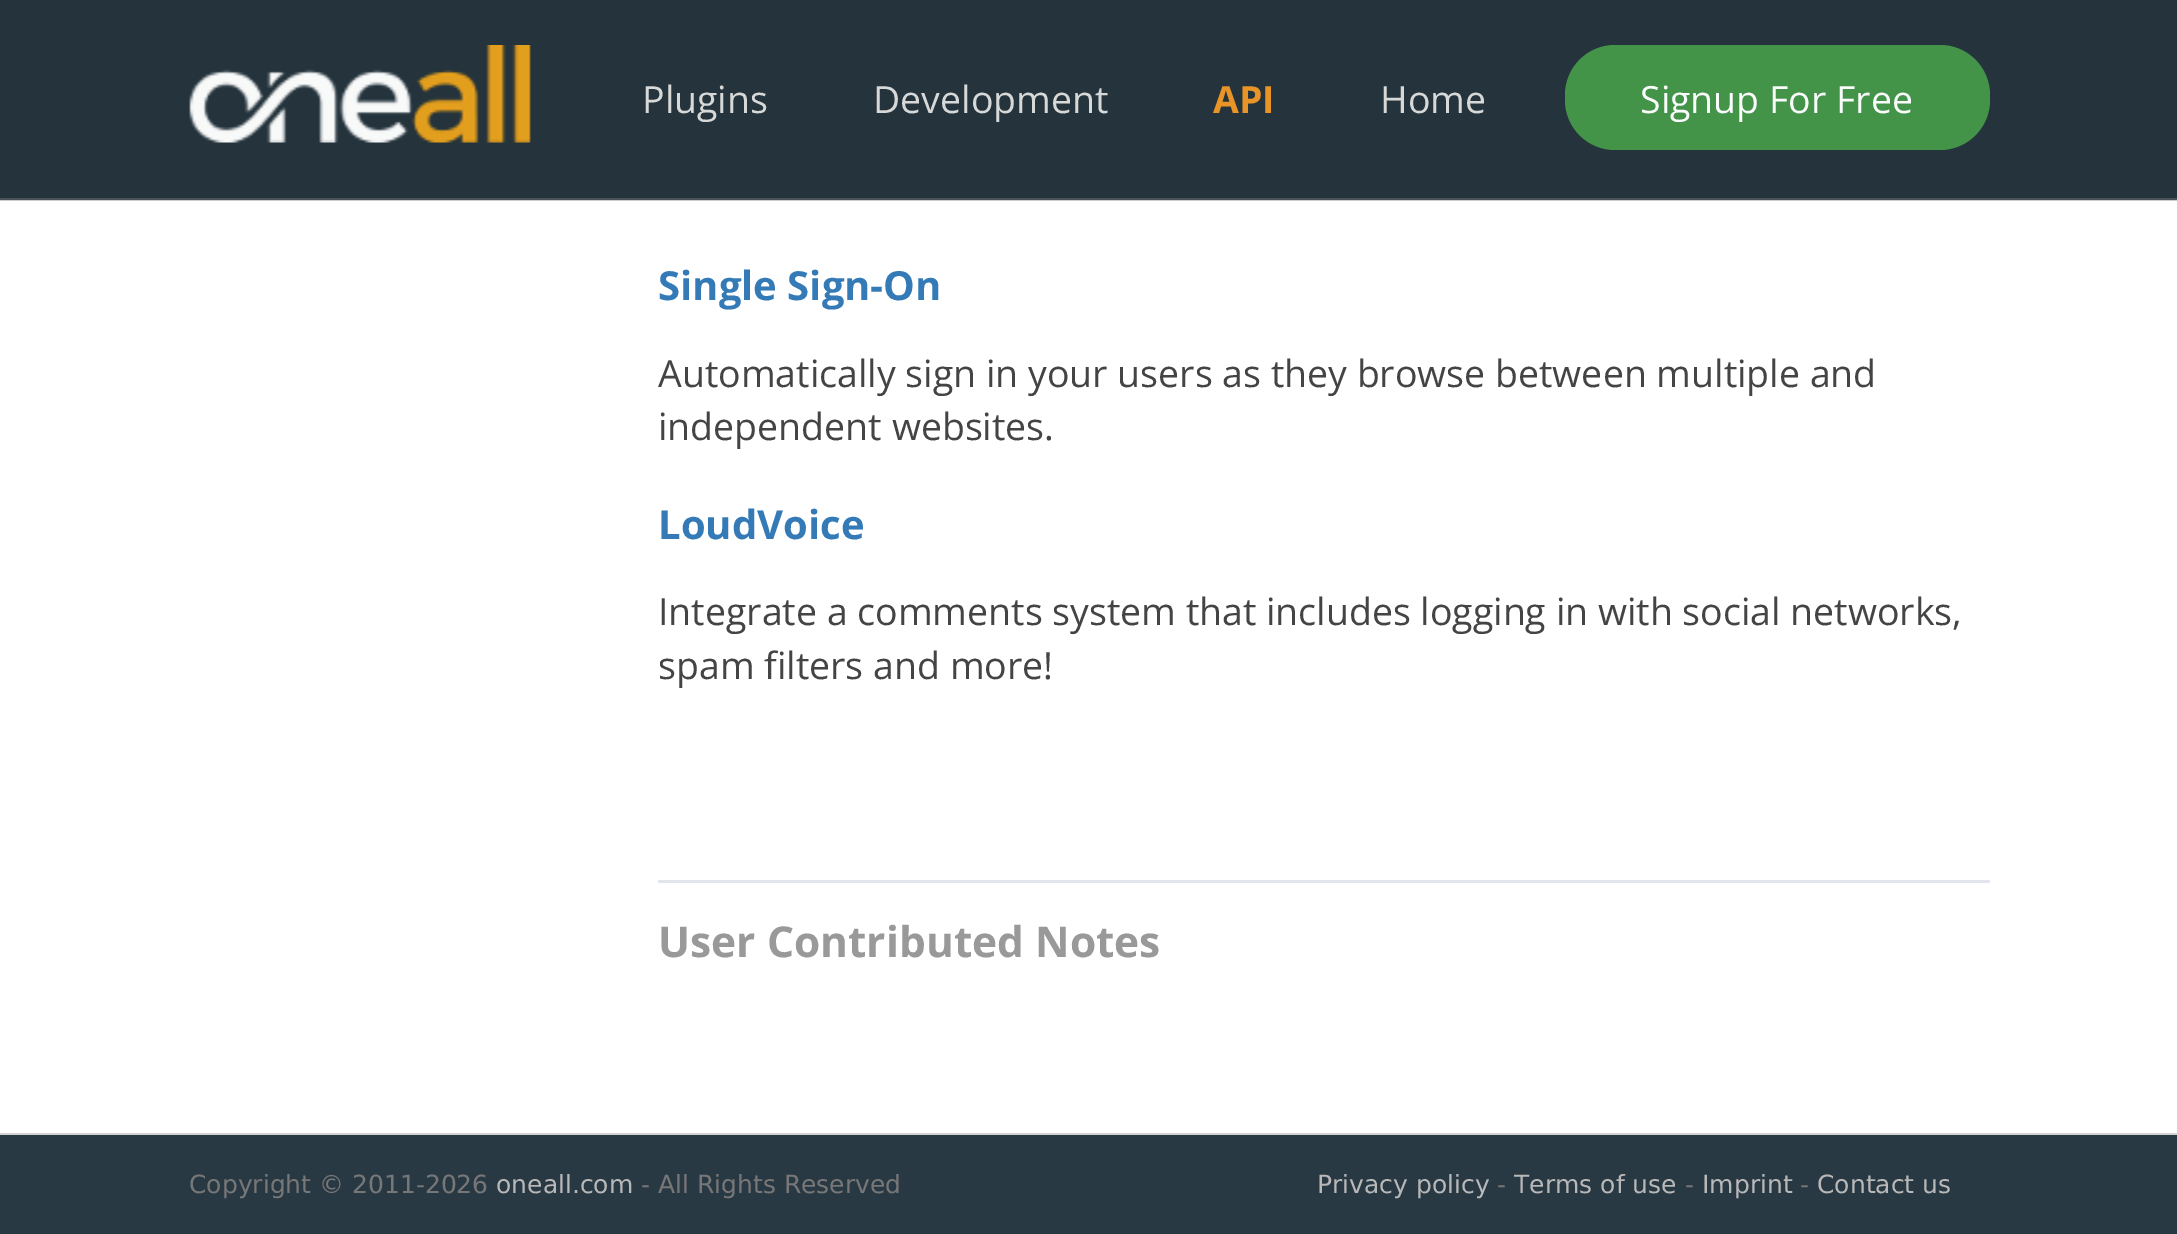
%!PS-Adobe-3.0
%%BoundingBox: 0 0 2177 1234
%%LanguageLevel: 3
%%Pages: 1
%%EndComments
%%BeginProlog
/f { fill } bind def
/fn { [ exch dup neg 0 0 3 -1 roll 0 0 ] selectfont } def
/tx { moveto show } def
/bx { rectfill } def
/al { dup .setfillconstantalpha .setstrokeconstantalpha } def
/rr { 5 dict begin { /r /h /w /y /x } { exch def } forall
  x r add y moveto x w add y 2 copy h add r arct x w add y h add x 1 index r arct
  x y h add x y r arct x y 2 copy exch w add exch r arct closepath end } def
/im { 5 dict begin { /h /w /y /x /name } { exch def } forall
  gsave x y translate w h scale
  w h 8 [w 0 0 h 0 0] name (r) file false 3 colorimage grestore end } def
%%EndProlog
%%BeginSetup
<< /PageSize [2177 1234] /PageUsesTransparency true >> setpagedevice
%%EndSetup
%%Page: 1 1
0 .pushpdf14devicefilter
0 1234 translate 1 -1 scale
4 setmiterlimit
0.824 setgray
0 0 2177 1234 bx
0.141 0.2 0.235 setrgbcolor
0 0 2177 198 bx
(image0.raw) 189 45 342 98 im
/OpenSans-Regular 37.5 fn
0.843 0.847 0.847 setrgbcolor
(Plugins) 642 113 tx
(Development) 873 113 tx
/OpenSans-Bold 37.5 fn
0.914 0.58 0.149 setrgbcolor
(API) 1213 113 tx
/OpenSans-Regular 37.5 fn
0.843 0.847 0.847 setrgbcolor
(Home) 1380 113 tx
0.78 al
0.298 0.682 0.298 setrgbcolor
1565 45 425 105 50 rr f
1 al
0.976 0.988 0.98 setrgbcolor
(Signup For Free) 1640 113 tx
1 setgray
0 201 2177 932 bx
0.804 setgray
0 200 2177 1 bx
0.286 0.322 0.345 setrgbcolor
0 198 2177 2 bx
/OpenSans-Bold 40 fn
0.2 0.478 0.718 setrgbcolor
(Single Sign-On) 658 300 tx
/OpenSans-Regular 37.5 fn
0.267 setgray
(Automatically sign in your users as they browse between multiple and) 658 387 tx
(independent websites.) 658 440 tx
/OpenSans-Bold 40 fn
0.2 0.478 0.718 setrgbcolor
(LoudVoice) 658 539 tx
/OpenSans-Regular 37.5 fn
0.267 setgray
(Integrate a comments system that includes logging in with social networks,) 658 625 tx
(spam filters and more!) 658 679 tx
0.878 0.902 0.922 setrgbcolor
658 880 1332 3 bx
/OpenSans-Bold 42.5 fn
0.6 setgray
(User Contributed Notes) 658 957 tx
0.161 0.224 0.267 setrgbcolor
0 1135 2177 99 bx
/DejaVuSans-Regular 25 fn
0.467 setgray
(Copyright © 2011-2026) 189 1193 tx
0.722 setgray
(oneall.com) 496 1193 tx
0.467 setgray
(- All Rights Reserved) 641 1193 tx
0.722 setgray
(Privacy policy) 1317 1193 tx
0.467 setgray
(-) 1497 1193 tx
0.722 setgray
(Terms of use) 1514 1193 tx
0.467 setgray
(-) 1685 1193 tx
0.722 setgray
(Imprint) 1702 1193 tx
0.467 setgray
(-) 1800 1193 tx
0.722 setgray
(Contact us) 1817 1193 tx
.poppdf14devicefilter showpage
%%EOF
